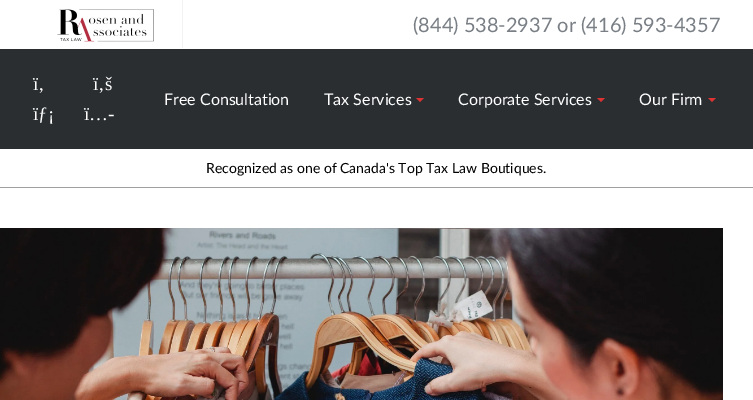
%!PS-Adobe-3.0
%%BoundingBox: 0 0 753 400
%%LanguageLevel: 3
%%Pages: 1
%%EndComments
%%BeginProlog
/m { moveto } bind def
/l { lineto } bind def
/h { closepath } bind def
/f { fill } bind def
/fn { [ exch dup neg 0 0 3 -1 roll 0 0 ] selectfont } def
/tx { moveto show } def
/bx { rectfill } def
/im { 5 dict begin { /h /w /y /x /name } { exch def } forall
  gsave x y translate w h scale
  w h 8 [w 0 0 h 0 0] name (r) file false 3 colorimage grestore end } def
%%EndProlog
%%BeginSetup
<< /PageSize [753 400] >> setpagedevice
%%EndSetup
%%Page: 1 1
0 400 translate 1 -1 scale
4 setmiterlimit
1 setgray
0 0 753 400 bx
(image0.raw) 57 9 97 33 im
0.949 0.949 0.953 setrgbcolor
182 0 1 48 bx
/Lato-Regular 20 fn
0.475 0.498 0.522 setrgbcolor
(\(844\) 538-2937 or \(416\) 593-4357) 413 32 tx
0.165 0.18 0.192 setrgbcolor
0 49 753 100 bx
/LiberationSerif-Regular 19 fn
1 setgray
(ï‚) 33 90 tx
(ï‚š) 93 90 tx
(ïƒ¡) 33 120 tx
(ï…-) 84 120 tx
/Lato-Regular 16 fn
(Free Consultation) 164 105 tx
(Tax Services) 324 105 tx
0.867 0.2 0.2 setrgbcolor
416 98 m 424 98 l 420 102 l h f
1 setgray
(Corporate Services) 458 105 tx
0.867 0.2 0.2 setrgbcolor
597 98 m 605 98 l 601 102 l h f
1 setgray
(Our Firm) 639 105 tx
0.867 0.2 0.2 setrgbcolor
708 98 m 716 98 l 712 102 l h f
0.627 setgray
0 187 753 1 bx
/Lato-Regular 14 fn
0 setgray
(Recognized as one of Canada's Top Tax Law Boutiques.) 206 173 tx
(image1.raw) 0 228 723 172 im
showpage
%%EOF
